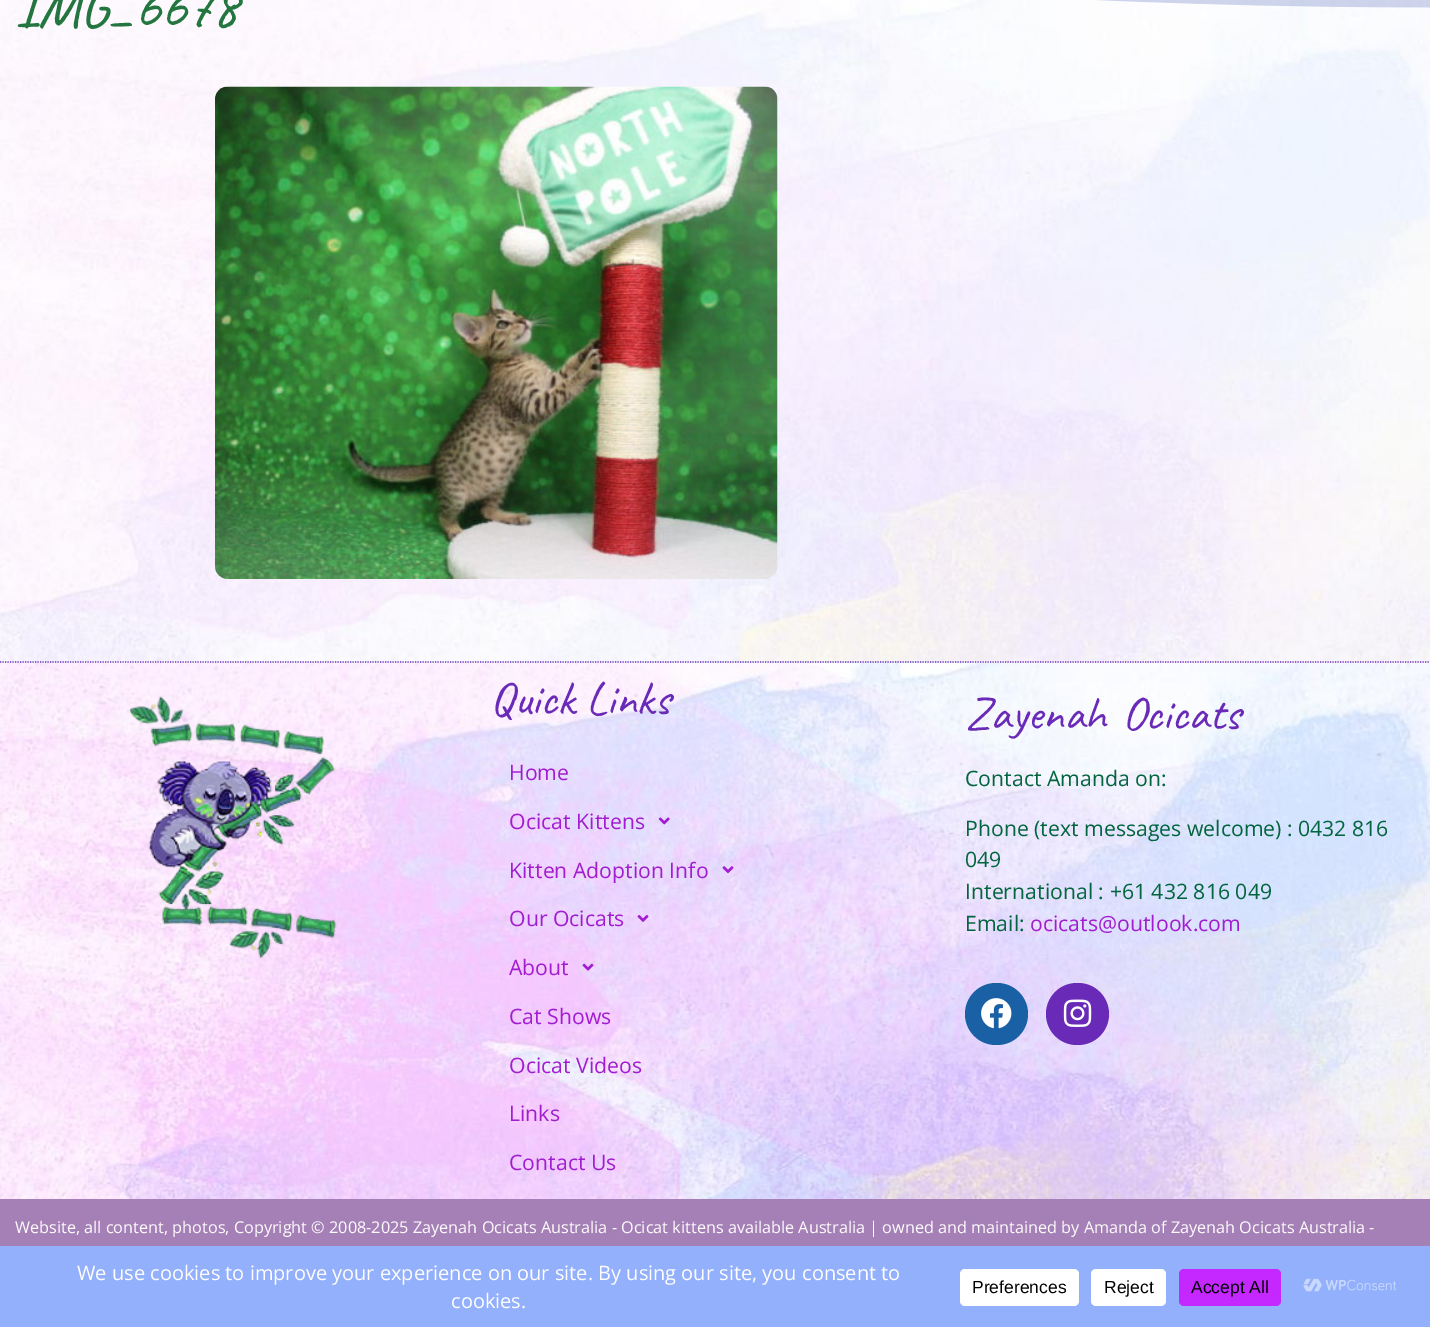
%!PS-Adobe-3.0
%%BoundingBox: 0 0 1430 1327
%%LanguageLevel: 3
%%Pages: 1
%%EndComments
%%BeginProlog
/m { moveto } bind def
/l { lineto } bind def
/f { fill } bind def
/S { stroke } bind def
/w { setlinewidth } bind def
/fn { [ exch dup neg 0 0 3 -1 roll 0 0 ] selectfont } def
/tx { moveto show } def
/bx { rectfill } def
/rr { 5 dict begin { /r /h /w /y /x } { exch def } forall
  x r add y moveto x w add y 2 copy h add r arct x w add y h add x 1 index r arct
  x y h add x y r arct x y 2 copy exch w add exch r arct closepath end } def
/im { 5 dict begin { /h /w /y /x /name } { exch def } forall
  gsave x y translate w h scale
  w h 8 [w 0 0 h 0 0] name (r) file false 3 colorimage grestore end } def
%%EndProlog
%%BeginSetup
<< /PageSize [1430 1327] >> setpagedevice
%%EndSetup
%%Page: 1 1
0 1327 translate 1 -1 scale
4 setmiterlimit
1 setgray
0 0 1430 1327 bx
(image0.raw) 0 0 1430 662 im
/Caveat-Medium 57.5 fn
0.137 0.463 0.251 setrgbcolor
(IMG_6678) 15 26 tx
(image1.raw) 1096 0 334 8 im
(image2.raw) 215 86 563 493 im
(image3.raw) 0 661 1430 538 im
0.412 0.165 0.718 setrgbcolor
1.2 w
[1.25 1.25] 0 setdash
0 662 m 1430 662 l S
(image4.raw) 129 696 208 262 im
/Caveat-Regular 47.5 fn
(Quick Links) 490 714 tx
/OpenSans-Regular 21.25 fn
0.635 0.114 0.812 setrgbcolor
(Home) 509 780 tx
(Ocicat Kittens) 509 829 tx
(image5.raw) 658 817 12 8 im
(Kitten Adoption Info) 509 878 tx
(image6.raw) 722 866 12 8 im
(Our Ocicats) 509 926 tx
(image7.raw) 637 915 12 7 im
(About) 509 975 tx
(image8.raw) 582 963 12 8 im
(Cat Shows) 509 1024 tx
(Ocicat Videos) 509 1073 tx
(Links) 509 1121 tx
(Contact Us) 509 1170 tx
/Caveat-Regular 47.5 fn
0.412 0.165 0.718 setrgbcolor
965 729 m 4 0 32 (Zayenah Ocicats) widthshow
/OpenSans-Regular 21.25 fn
0.012 0.396 0.243 setrgbcolor
(Contact Amanda on:) 965 786 tx
(Phone \(text messages welcome\) : 0432 816) 965 836 tx
(049) 965 867 tx
(International : +61 432 816 049) 965 899 tx
(Email:) 965 931 tx
0.635 0.114 0.812 setrgbcolor
(ocicats@outlook.com) 1030 931 tx
0.102 0.376 0.647 setrgbcolor
965 983 63 62 31 rr f
(image9.raw) 981 998 31 31 im
0.412 0.165 0.718 setrgbcolor
1046 983 63 62 31 rr f
(image10.raw) 1063 999 29 28 im
0.647 0.502 0.718 setrgbcolor
0 1199 1430 47 bx
/OpenSans-Regular 16.25 fn
1 0.992 0.992 setrgbcolor
(Website, all content, photos, Copyright © 2008-2025 Zayenah Ocicats Australia - Ocicat kittens available Australia | owned and maintained by Amanda of Zayenah Ocicats Australia -) 15 1233 tx
0.573 0.69 0.984 setrgbcolor
0 1246 1430 81 bx
/OpenSans-Regular 20 fn
1 0.992 0.992 setrgbcolor
(We use cookies to improve your experience on our site. By using our site, you consent to) 77 1280 tx
(cookies.) 451 1308 tx
1 setgray
960 1269 119 37 5 rr f
/LiberationSans-Regular 17.5 fn
0 setgray
(Preferences) 972 1293 tx
1 setgray
1091 1269 75 37 5 rr f
0 setgray
(Reject) 1104 1293 tx
0.773 0.157 1 setrgbcolor
1179 1269 102 37 5 rr f
0 setgray
(Accept All) 1191 1293 tx
(image11.raw) 1303 1278 93 14 im
showpage
%%EOF
